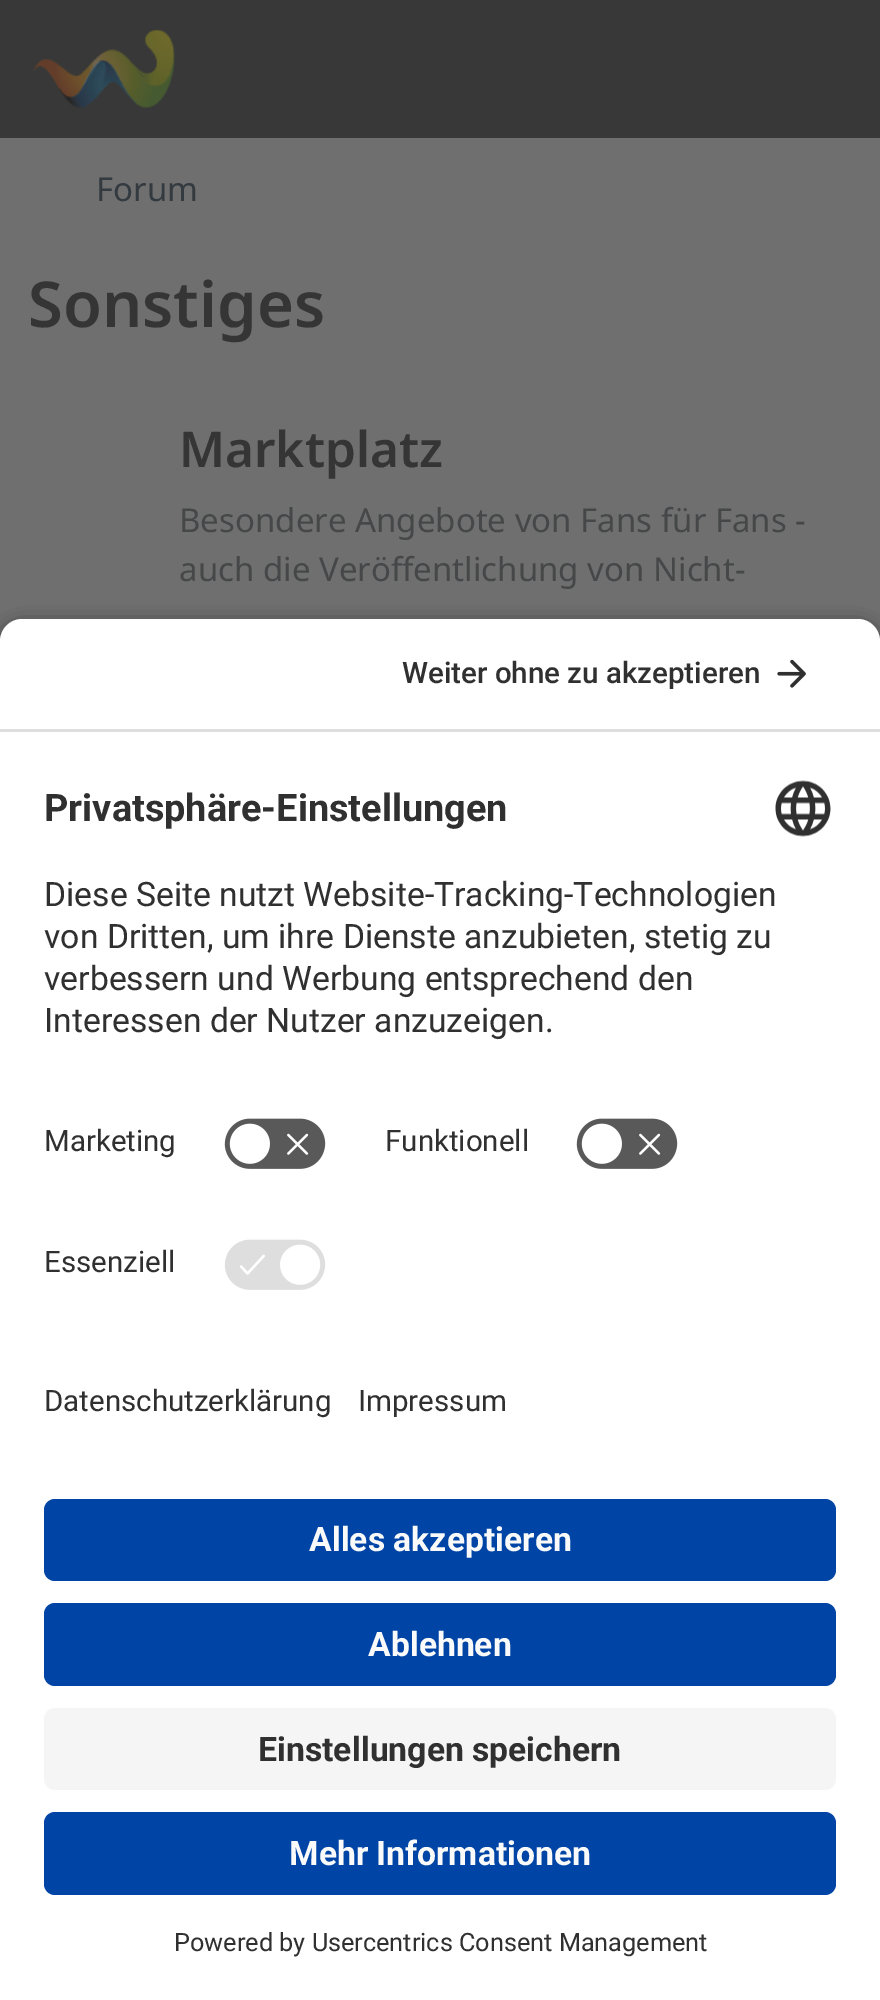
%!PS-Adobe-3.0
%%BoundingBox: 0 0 880 2000
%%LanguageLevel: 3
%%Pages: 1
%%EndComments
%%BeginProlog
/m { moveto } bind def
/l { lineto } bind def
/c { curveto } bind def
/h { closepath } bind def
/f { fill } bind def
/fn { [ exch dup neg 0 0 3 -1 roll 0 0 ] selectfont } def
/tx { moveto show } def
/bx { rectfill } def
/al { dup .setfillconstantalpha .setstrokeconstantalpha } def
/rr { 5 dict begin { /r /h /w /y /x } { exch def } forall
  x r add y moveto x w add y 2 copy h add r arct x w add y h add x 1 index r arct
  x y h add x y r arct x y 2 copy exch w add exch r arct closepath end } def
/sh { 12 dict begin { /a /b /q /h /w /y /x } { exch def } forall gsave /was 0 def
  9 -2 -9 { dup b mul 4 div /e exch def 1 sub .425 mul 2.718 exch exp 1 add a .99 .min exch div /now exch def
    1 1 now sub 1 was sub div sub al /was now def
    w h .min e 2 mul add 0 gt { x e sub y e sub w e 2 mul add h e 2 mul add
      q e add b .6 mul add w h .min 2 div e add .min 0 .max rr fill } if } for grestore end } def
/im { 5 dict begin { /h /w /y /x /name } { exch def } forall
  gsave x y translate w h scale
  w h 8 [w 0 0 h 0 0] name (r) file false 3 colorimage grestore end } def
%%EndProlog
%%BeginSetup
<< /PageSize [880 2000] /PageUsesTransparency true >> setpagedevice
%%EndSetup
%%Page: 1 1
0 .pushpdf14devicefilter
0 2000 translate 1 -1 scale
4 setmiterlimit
0.435 setgray
0 0 880 2000 bx
0.22 setgray
0 0 880 138 bx
(image0.raw) 32 29 143 79 im
/NotoSans-Regular 33 fn
0.2 0.227 0.251 setrgbcolor
(Forum) 96 201 tx
/NotoSans-SemiBold 63.25 fn
0.208 0.208 0.212 setrgbcolor
(Sonstiges) 28 327 tx
/NotoSans-SemiBold 49.5 fn
(Marktplatz) 179 467 tx
/NotoSans-Regular 33 fn
0.275 0.278 0.282 setrgbcolor
(Besondere Angebote von Fans für Fans -) 179 532 tx
(auch die Veröffentlichung von Nicht-) 179 581 tx
0 setgray
0 627 880 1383 22 9.5 0.8 sh
1 setgray
22 619 m 858 619 l 870 619 880 629 880 641 c 880 732 l 0 732 l 0 641 l 0 629 10 619 22 619 c h f
0.871 setgray
0 729 880 3 bx
/Roboto-Medium 29.5 fn
0.188 setgray
(Weiter ohne zu akzeptieren) 402 683 tx
(image1.raw) 777 659 29 29 im
1 setgray
0 732 880 1268 bx
/Roboto-Bold 37.9 fn
0.188 setgray
(Privatsphäre-Einstellungen) 44 821 tx
(image2.raw) 775 780 56 57 im
/Roboto-Regular 33.7 fn
(Diese Seite nutzt Website-Tracking-Technologien) 44 906 tx
(von Dritten, um ihre Dienste anzubieten, stetig zu) 44 948 tx
(verbessern und Werbung entsprechend den) 44 990 tx
(Interessen der Nutzer anzuzeigen.) 44 1032 tx
/Roboto-Regular 29.5 fn
(Marketing) 44 1151 tx
(image3.raw) 224 1118 102 51 im
(Funktionell) 385 1151 tx
(image3.raw) 576 1118 102 51 im
(Essenziell) 44 1272 tx
(image4.raw) 224 1239 102 51 im
(Datenschutzerklärung) 44 1411 tx
(Impressum) 358 1411 tx
0 0.271 0.647 setrgbcolor
44 1499 792 82 11 rr f
/Roboto-Bold 33.7 fn
0.98 setgray
(Alles akzeptieren) 309 1551 tx
0 0.271 0.647 setrgbcolor
44 1603 792 83 11 rr f
0.98 setgray
(Ablehnen) 368 1656 tx
0.961 setgray
44 1708 792 82 11 rr f
0.188 setgray
(Einstellungen speichern) 258 1761 tx
0 0.271 0.647 setrgbcolor
44 1812 792 83 11 rr f
0.98 setgray
(Mehr Informationen) 289 1865 tx
/Roboto-Regular 25.25 fn
0.188 setgray
(Powered by Usercentrics Consent Management) 174 1951 tx
.poppdf14devicefilter showpage
%%EOF
